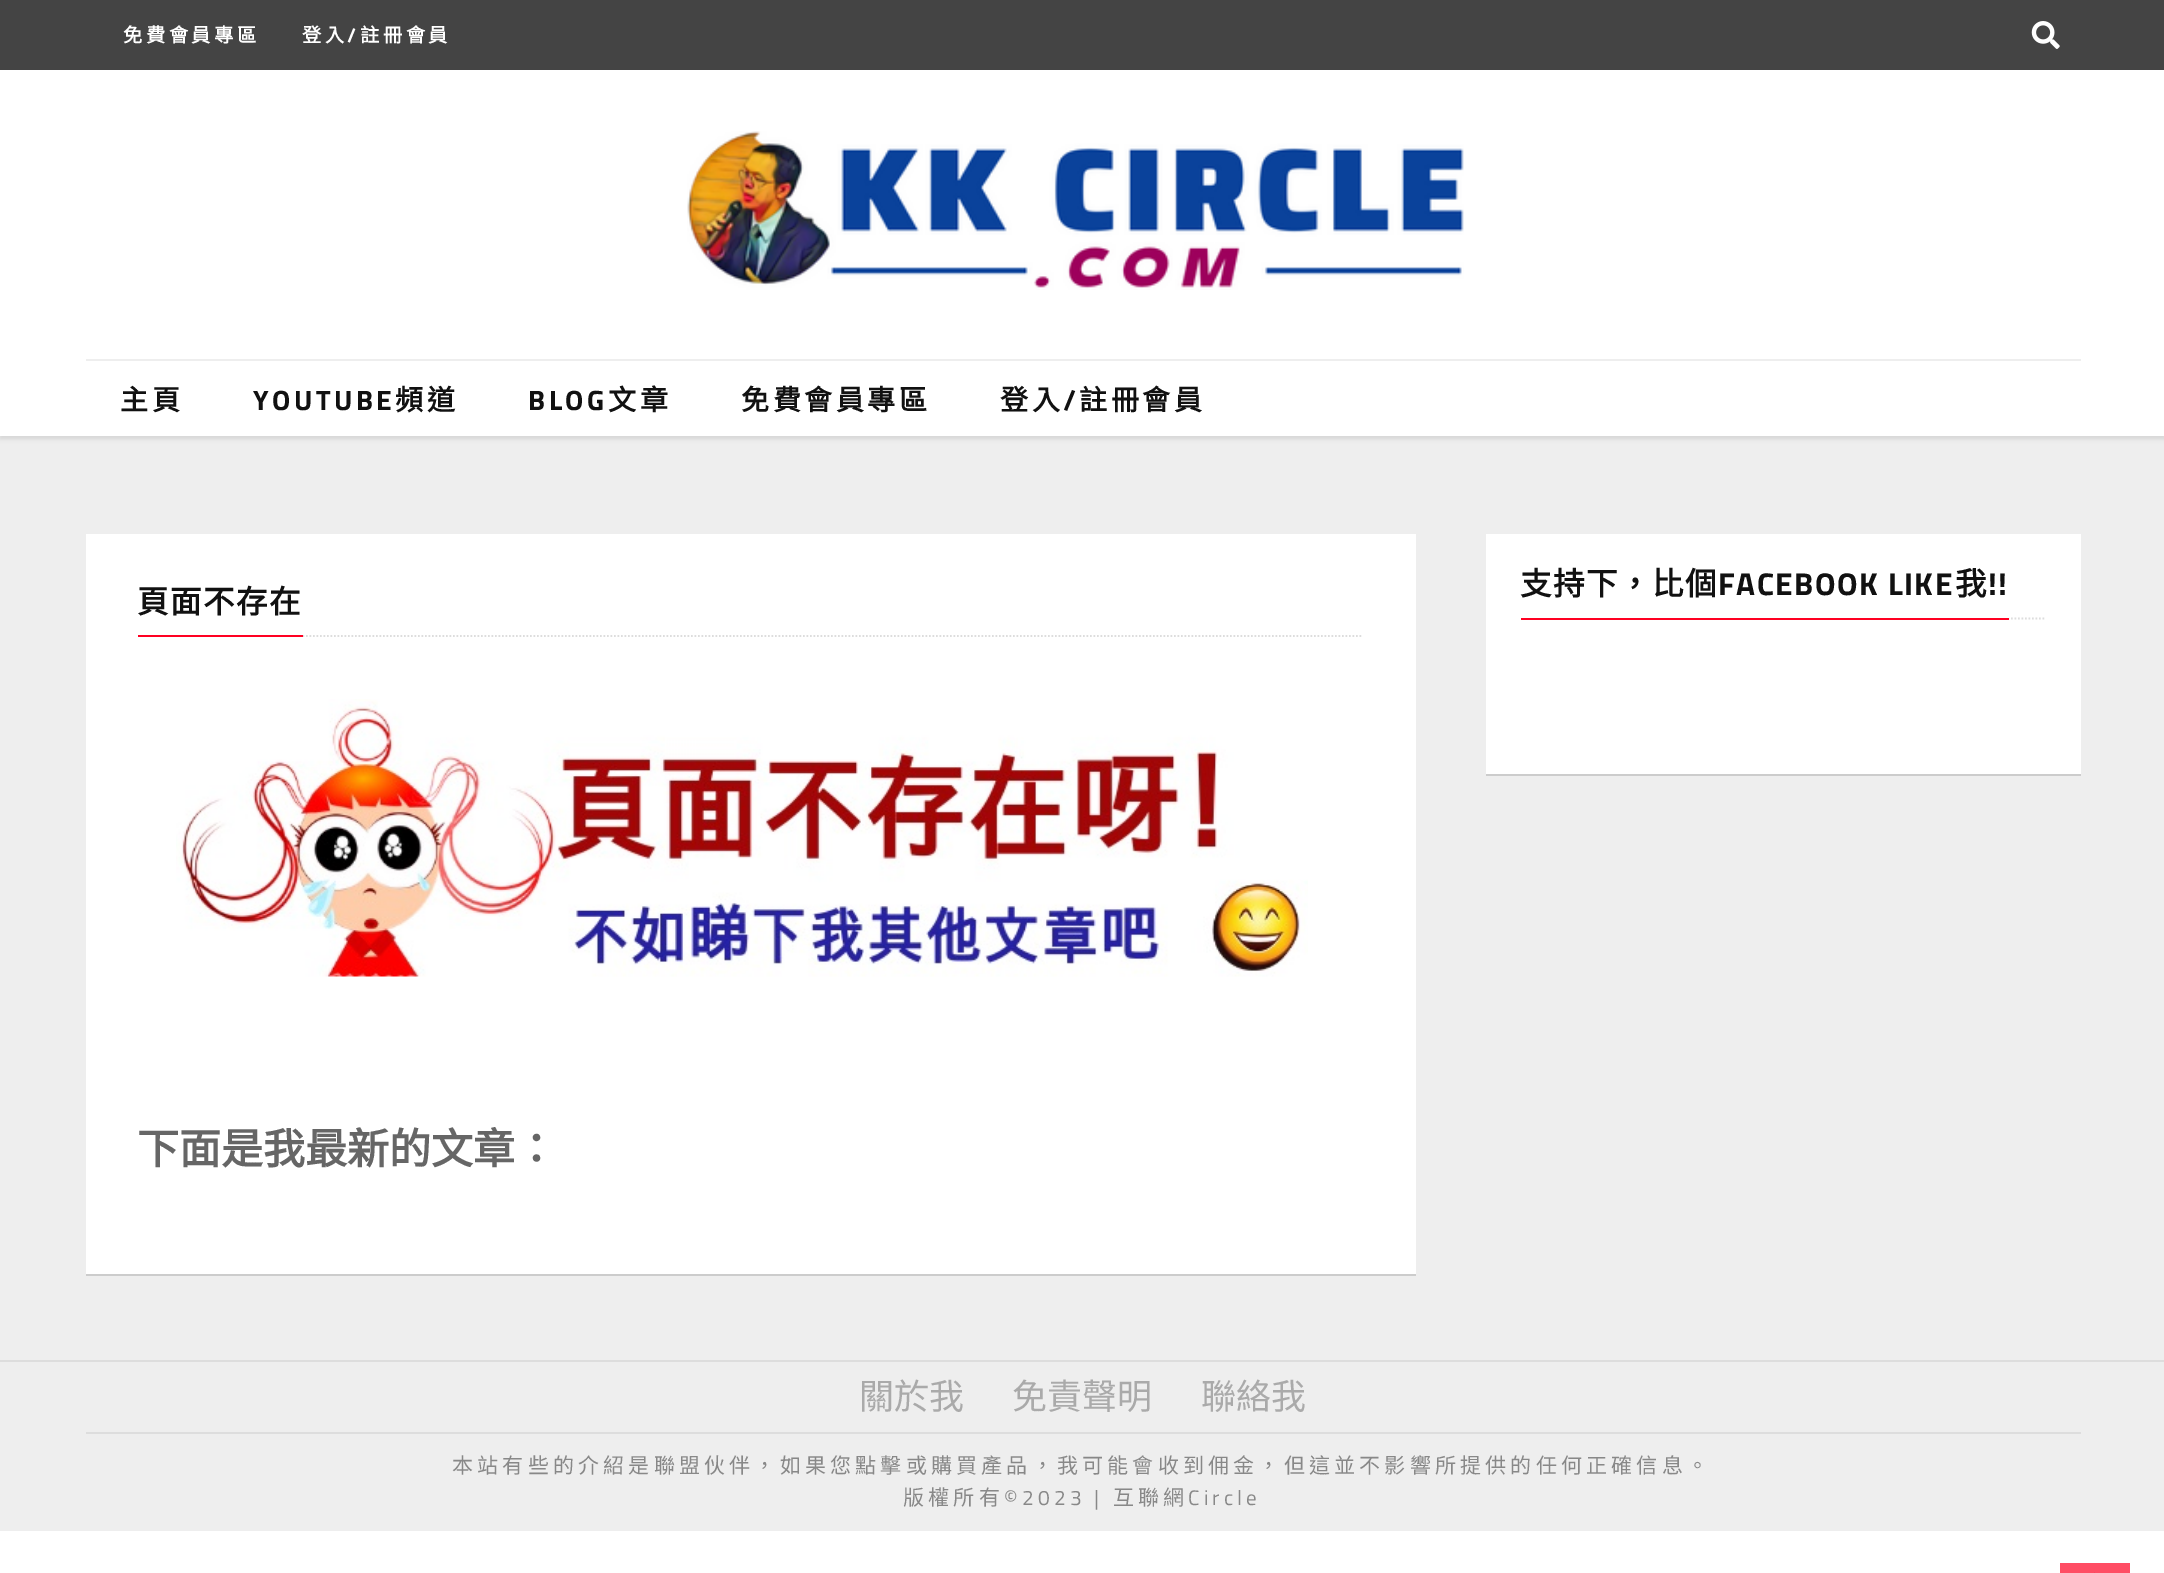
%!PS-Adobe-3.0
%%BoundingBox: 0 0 2164 1573
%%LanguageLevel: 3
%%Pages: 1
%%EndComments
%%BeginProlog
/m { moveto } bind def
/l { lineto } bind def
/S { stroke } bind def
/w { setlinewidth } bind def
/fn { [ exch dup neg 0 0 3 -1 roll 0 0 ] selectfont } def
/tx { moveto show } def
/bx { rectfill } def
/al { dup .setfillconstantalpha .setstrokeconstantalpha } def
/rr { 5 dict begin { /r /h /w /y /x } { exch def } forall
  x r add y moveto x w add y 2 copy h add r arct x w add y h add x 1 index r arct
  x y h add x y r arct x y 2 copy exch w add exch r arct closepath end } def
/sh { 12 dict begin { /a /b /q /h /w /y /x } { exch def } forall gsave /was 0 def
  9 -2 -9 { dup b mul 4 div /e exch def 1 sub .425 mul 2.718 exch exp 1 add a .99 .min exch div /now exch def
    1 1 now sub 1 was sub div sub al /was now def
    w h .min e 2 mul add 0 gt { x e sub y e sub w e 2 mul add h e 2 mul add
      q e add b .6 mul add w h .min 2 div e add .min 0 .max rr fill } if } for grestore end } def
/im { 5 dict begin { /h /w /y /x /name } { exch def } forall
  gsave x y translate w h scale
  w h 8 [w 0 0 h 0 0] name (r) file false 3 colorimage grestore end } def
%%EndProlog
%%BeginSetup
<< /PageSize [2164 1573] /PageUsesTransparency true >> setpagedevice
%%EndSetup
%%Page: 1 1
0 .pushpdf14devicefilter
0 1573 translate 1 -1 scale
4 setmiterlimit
1 setgray
0 0 2164 1573 bx
0.933 setgray
0 436 2164 1095 bx
0 setgray
0 4 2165 435 0 2 0.1 sh
1 setgray
0 70 2164 366 bx
0.267 setgray
0 0 2164 70 bx
/NotoSansCJKHK-Bold 19.25 fn
1 setgray
123 42 m 3.5 0 (免費會員專區) ashow
302 42 m 3.5 0 (登入) ashow
/TitilliumWeb-Bold 19.25 fn
347 42 m 3.5 0 (/) ashow
/NotoSansCJKHK-Bold 19.25 fn
360 42 m 3.5 0 (註冊會員) ashow
(image0.raw) 2031 21 29 28 im
(image1.raw) 687 131 777 159 im
0.933 setgray
86 359 1995 2 bx
/NotoSansCJKHK-Bold 28 fn
0.067 setgray
120 410 m 3.5 0 (主頁) ashow
/TitilliumWeb-Bold 28 fn
253 410 m 3.5 0 (YOUTUBE) ashow
/NotoSansCJKHK-Bold 28 fn
395 410 m 3.5 0 (頻道) ashow
/TitilliumWeb-Bold 28 fn
528 410 m 3.5 0 (BLOG) ashow
/NotoSansCJKHK-Bold 28 fn
608 410 m 3.5 0 (文章) ashow
741 410 m 3.5 0 (免費會員專區) ashow
1000 410 m 3.5 0 (登入) ashow
/TitilliumWeb-Bold 28 fn
1063 410 m 3.5 0 (/) ashow
/NotoSansCJKHK-Bold 28 fn
1079 410 m 3.5 0 (註冊會員) ashow
1 setgray
1486 534 595 240 bx
0.8 setgray
1486 774 595 2 bx
0.867 setgray
1.8 w
[1.75 1.75] 0 setdash
1521 618.5 m 2046 618.5 l S
1 setgray
1521 617 488 1 bx
1 0 0.133 setrgbcolor
1521 618 488 2 bx
/NotoSansCJKHK-Bold 31.5 fn
0.067 setgray
1520 595 m 1.5 0 (支持下，比個) ashow
/TitilliumWeb-Bold 31.5 fn
1718 595 m 1.5 0 (FACEBOOK LIKE) ashow
/NotoSansCJKHK-Bold 31.5 fn
1955 595 m 1.5 0 (我) ashow
/TitilliumWeb-Bold 31.5 fn
1988 595 m 1.5 0 (!!) ashow
1 setgray
86 534 1330 740 bx
0.8 setgray
86 1274 1330 2 bx
0.867 setgray
138 636 m 1363 636 l S
1 0 0.133 setrgbcolor
138 635 165 2 bx
/NotoSansCJKHK-Bold 31.5 fn
0.067 setgray
137 613 m 1.5 0 (頁面不存在) ashow
(image2.raw) 176 699 1132 278 im
/NotoSansCJKHK-Bold 42 fn
0.4 setgray
(下面是我最新的文章：) 137 1164 tx
0.867 setgray
0 1360 2164 2 bx
/NotoSansCJKHK-Regular 35 fn
0.667 setgray
(關於我) 859 1409 tx
(免責聲明) 1012 1409 tx
(聯絡我) 1201 1409 tx
0.867 setgray
86 1432 1995 2 bx
/NotoSansCJKHK-Regular 21 fn
0.533 setgray
452 1473 m 4.2 0 (本站有些的介紹是聯盟伙伴，如果您點擊或購買產品，我可能會收到佣金，但這並不影響所提供的任何正確信息。) ashow
903 1505 m 4.2 0 (版權所有) ashow
/TitilliumWeb-Regular 21 fn
1004 1505 m 4.2 0 (©2023 |) ashow
/NotoSansCJKHK-Regular 21 fn
1113 1505 m 4.2 0 (互聯網) ashow
/TitilliumWeb-Regular 21 fn
1188 1505 m 4.2 0 (Circle) ashow
1 0.302 0.392 setrgbcolor
2060 1563 70 10 bx
0.953 0.294 0.38 setrgbcolor
2094 1572 1 1 bx
.poppdf14devicefilter showpage
%%EOF
